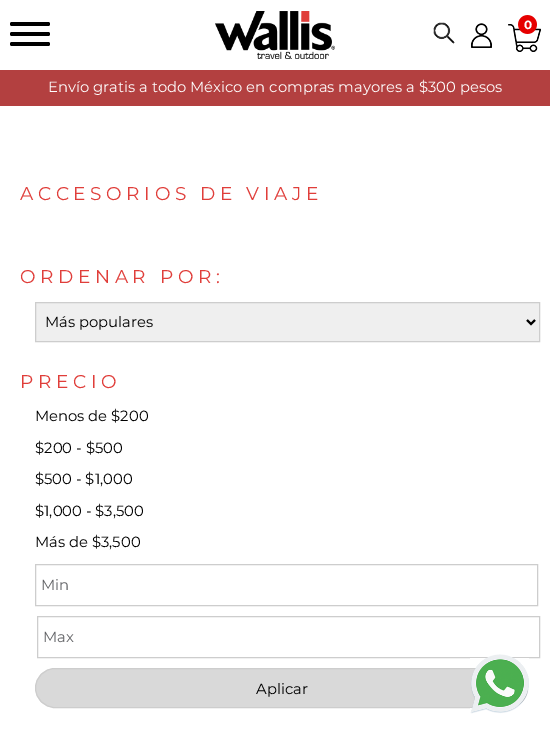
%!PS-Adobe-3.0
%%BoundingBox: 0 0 550 734
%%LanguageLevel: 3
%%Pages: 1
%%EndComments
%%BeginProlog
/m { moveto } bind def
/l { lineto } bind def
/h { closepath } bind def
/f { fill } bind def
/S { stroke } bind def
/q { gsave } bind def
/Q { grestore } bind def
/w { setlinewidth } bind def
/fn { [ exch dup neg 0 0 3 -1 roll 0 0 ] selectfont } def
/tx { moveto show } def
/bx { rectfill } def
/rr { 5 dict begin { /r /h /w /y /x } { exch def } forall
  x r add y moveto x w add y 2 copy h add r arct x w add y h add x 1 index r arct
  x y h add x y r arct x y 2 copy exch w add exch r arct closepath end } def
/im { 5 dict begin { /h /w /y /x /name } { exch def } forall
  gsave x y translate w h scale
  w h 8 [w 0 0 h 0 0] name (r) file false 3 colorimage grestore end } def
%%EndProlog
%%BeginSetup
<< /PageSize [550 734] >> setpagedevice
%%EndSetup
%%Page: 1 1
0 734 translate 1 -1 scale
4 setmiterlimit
1 setgray
0 0 550 734 bx
0 setgray
10 32 40 4 2 rr f
10 22 40 4 2 rr f
10 42 40 4 2 rr f
(image0.raw) 215 11 120 48 im
(image1.raw) 433 22 22 22 im
(image2.raw) 471 23 21 25 im
(image3.raw) 508 15 33 37 im
/Montserrat-Bold 12 fn
1 setgray
(0) 524 29 tx
0.702 0.251 0.251 setrgbcolor
0 70 550 36 bx
/Montserrat-Regular 14.8 fn
1 setgray
(Envío gratis a todo México en compras mayores a $300 pesos) 48 92 tx
/Montserrat-Regular 18.5 fn
0.878 0.243 0.227 setrgbcolor
20 200 m 4.6 0 (ACCESORIOS DE VIAJE) ashow
20 283 m 4.6 0 (ORDENAR POR:) ashow
0.937 setgray
35.5 302.5 m 539.5 302.5 l 539.5 341.5 l 35.5 341.5 l h q f Q
0.804 setgray
S
0 setgray
2 w
527 320 m 531 324 l 535 320 l S
/Montserrat-Regular 14.8 fn
(Más populares) 45 327 tx
/Montserrat-Regular 18.5 fn
0.878 0.243 0.227 setrgbcolor
20 388 m 4.6 0 (PRECIO) ashow
/Montserrat-Regular 14.8 fn
0 setgray
(Menos de $200) 35 421 tx
($200 - $500) 35 453 tx
($500 - $1,000) 35 484 tx
($1,000 - $3,500) 35 516 tx
(Más de $3,500) 35 547 tx
0.804 setgray
1 w
35.5 564.5 502 41 rectstroke
0.384 0.388 0.4 setrgbcolor
(Min) 41 590 tx
0.804 setgray
37.5 616.5 502 41 rectstroke
0.384 0.388 0.4 setrgbcolor
(Max) 43 642 tx
0.851 setgray
35.5 668.5 492 39 19.5 rr q f Q
0.804 setgray
S
0 setgray
(Aplicar) 256 694 tx
(image4.raw) 470 654 59 60 im
showpage
%%EOF
